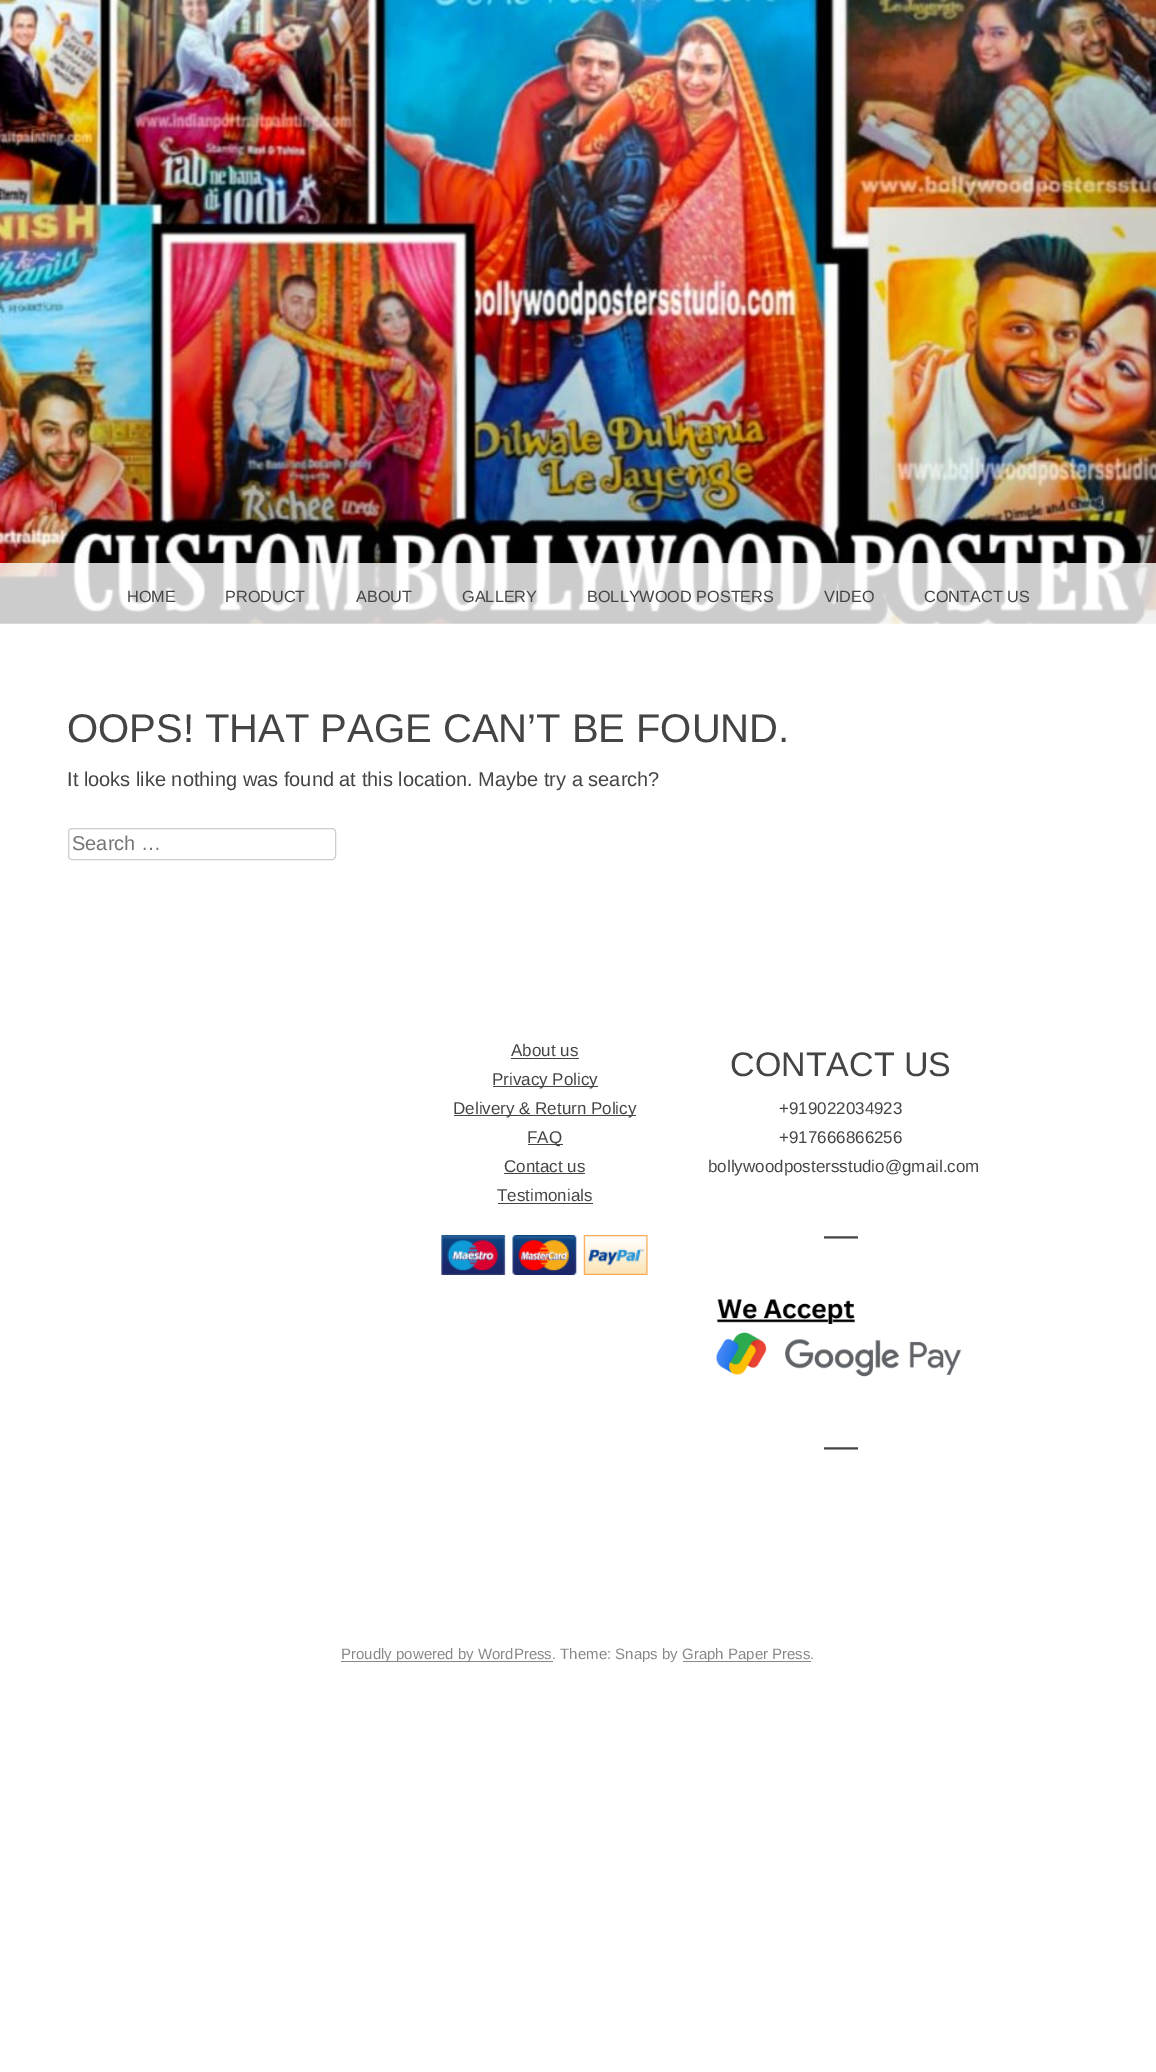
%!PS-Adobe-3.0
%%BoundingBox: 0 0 1156 2072
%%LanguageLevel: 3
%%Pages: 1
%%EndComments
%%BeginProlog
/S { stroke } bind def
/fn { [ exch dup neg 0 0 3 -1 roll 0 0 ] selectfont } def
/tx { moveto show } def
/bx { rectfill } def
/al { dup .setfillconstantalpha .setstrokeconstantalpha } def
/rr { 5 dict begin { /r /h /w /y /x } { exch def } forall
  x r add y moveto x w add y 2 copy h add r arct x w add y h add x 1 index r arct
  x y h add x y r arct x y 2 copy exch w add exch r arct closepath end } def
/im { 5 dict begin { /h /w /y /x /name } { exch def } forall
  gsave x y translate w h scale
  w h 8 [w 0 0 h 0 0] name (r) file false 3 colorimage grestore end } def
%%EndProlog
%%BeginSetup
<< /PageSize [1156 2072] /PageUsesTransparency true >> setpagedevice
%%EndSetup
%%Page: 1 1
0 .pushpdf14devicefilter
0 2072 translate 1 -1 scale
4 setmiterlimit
1 setgray
0 0 1156 2072 bx
(image0.raw) 0 0 1156 624 im
0.8 al
0 563 1156 61 bx
/LiberationSans-Regular 16.25 fn
1 al
0.267 setgray
(HOME) 127 602 tx
(PRODUCT) 225 602 tx
(ABOUT) 356 602 tx
(GALLERY) 462 602 tx
(BOLLYWOOD POSTERS) 587 602 tx
(VIDEO) 824 602 tx
(CONTACT US) 924 602 tx
/LiberationSans-Regular 40 fn
(OOPS! THAT PAGE CAN’T BE FOUND.) 67 742 tx
/LiberationSans-Regular 20 fn
(It looks like nothing was found at this location. Maybe try a search?) 67 786 tx
0.8 setgray
68.5 828.5 267 31 3.5 rr S
0.459 setgray
(Search …) 72 850 tx
/LiberationSans-Regular 17 fn
0.267 setgray
(About us) 511 1056 tx
511 1058 68 1 bx
493 1086 105 1 bx
(Privacy Policy) 492 1085 tx
454 1115 182 1 bx
(Delivery & Return Policy) 453 1114 tx
528 1144 35 1 bx
(FAQ) 527 1143 tx
(Contact us) 504 1172 tx
504 1173 81 1 bx
(Testimonials) 497 1201 tx
498 1203 95 1 bx
(image1.raw) 441 1235 207 40 im
/LiberationSans-Regular 34 fn
(CONTACT US) 730 1076 tx
/LiberationSans-Regular 17 fn
(+919022034923) 779 1114 tx
(+917666866256) 779 1143 tx
(bollywoodpostersstudio@gmail.com) 708 1172 tx
/LiberationSans-Regular 34 fn
(—) 824 1246 tx
(image2.raw) 716 1299 246 78 im
(—) 824 1457 tx
0.533 setgray
341 1661 212 1 bx
/LiberationSans-Regular 15 fn
(Proudly powered by WordPress. Theme: Snaps by) 341 1659 tx
683 1661 128 1 bx
(Graph Paper Press.) 682 1659 tx
.poppdf14devicefilter showpage
%%EOF
